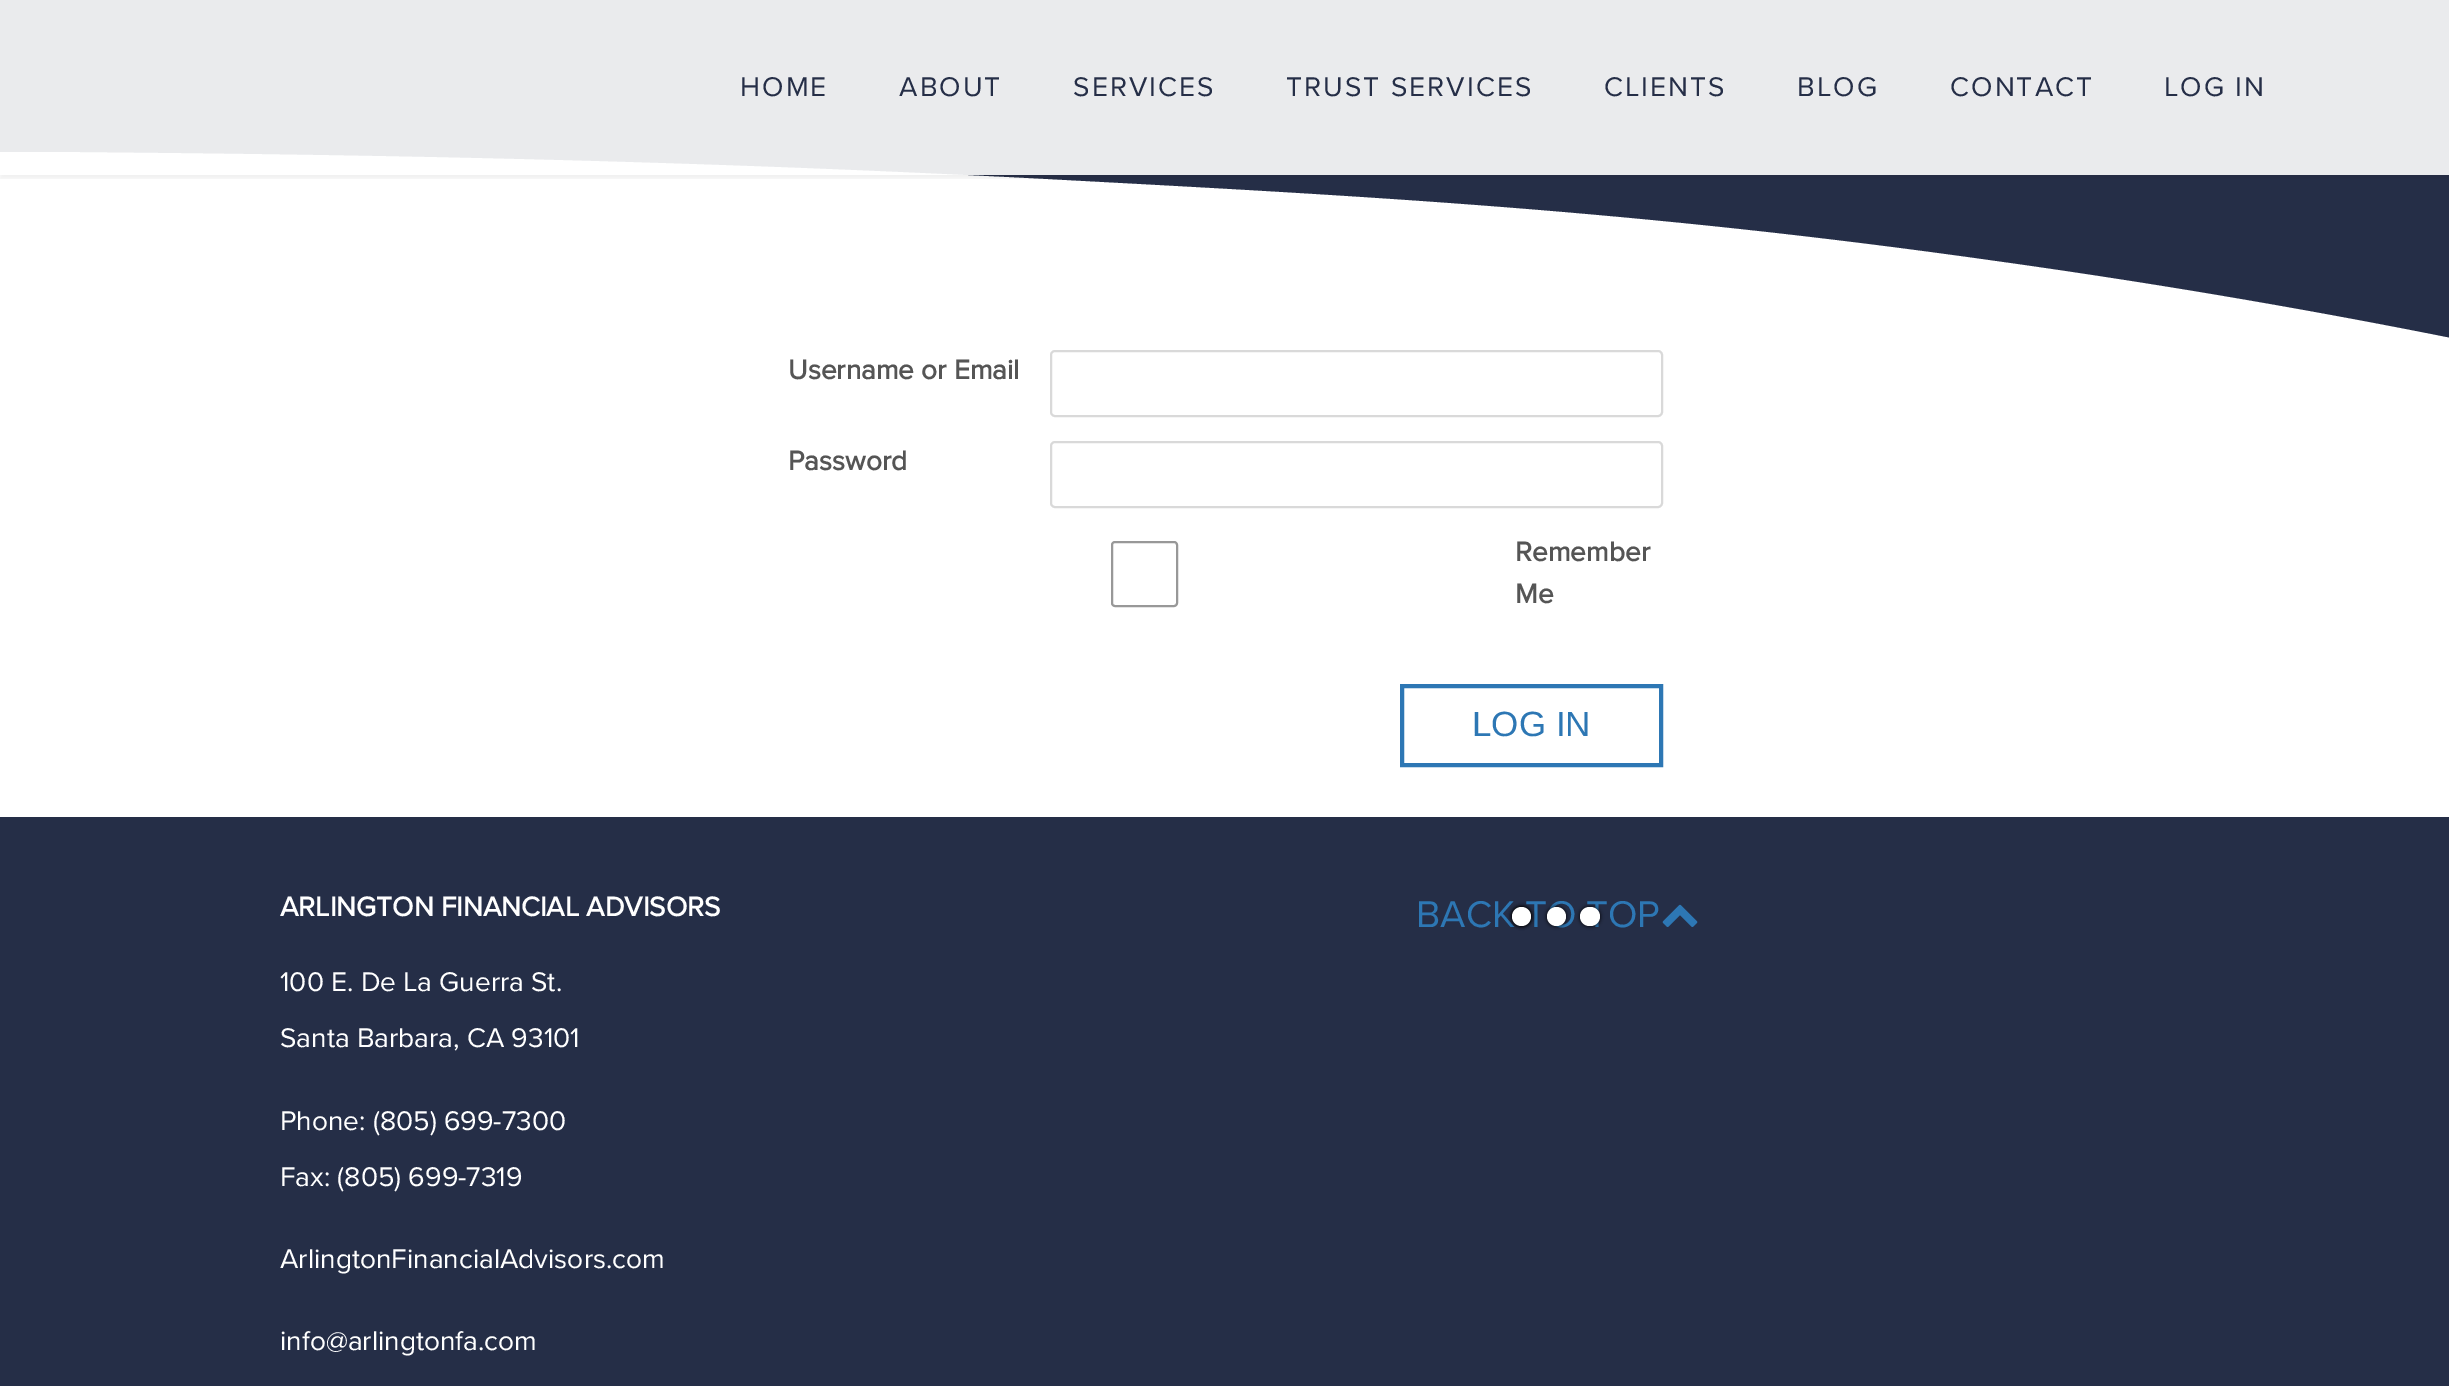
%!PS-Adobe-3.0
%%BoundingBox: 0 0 2449 1386
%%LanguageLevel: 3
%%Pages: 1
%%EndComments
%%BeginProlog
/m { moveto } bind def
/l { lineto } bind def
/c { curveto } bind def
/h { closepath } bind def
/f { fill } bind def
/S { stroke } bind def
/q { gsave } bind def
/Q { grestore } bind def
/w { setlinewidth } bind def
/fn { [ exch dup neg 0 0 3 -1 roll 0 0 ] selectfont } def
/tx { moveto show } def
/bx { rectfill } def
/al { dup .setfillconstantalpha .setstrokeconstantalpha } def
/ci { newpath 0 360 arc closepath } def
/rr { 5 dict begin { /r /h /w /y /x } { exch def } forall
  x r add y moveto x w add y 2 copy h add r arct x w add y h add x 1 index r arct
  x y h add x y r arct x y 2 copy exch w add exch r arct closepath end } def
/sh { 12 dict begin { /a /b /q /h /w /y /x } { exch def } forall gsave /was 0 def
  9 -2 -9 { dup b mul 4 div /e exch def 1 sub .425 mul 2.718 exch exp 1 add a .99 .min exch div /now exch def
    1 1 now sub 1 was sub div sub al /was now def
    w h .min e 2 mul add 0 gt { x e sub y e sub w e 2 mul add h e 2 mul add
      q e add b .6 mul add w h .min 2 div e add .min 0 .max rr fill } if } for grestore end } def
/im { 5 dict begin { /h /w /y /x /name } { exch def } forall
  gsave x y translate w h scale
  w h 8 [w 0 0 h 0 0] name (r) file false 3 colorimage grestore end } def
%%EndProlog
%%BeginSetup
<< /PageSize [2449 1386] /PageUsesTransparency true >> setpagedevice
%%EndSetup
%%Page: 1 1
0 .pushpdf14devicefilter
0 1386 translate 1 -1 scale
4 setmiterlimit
1 setgray
0 0 2449 1386 bx
0.145 0.18 0.278 setrgbcolor
0 0 2449 9 bx
q
0 9 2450 329 rectclip
0 8 m 0 152 l 80 152 l 305 154 649 158 1048 179 c 1367 196 1637 210 1997 261 c 2177 286 2332 314 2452 338 c 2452 8 l h f
Q
q
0 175 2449 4 rectclip
0 setgray
0 4 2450 175 0 2 0.05 sh
Q
0.9 al
1 setgray
0 0 2449 175 bx
/ProximaNova-Regular 28 fn
1 al
0.145 0.18 0.278 setrgbcolor
740 96 m 2.1 0 (HOME) ashow
899 96 m 2.1 0 (ABOUT) ashow
1073 96 m 2.1 0 (SERVICES) ashow
1286 96 m 2.1 0 (TRUST SERVICES) ashow
1604 96 m 2.1 0 (CLIENTS) ashow
1797 96 m 2.1 0 (BLOG) ashow
1950 96 m 2.1 0 (CONTACT) ashow
2164 96 m 2.1 0 (LOG IN) ashow
/ProximaNova-Bold 28 fn
0.333 setgray
(Username or Email) 788 379 tx
0.851 setgray
2 w
1051 351 611 65 4 rr S
0.333 setgray
(Password) 788 470 tx
0.851 setgray
1051 442 611 65 4 rr S
0.596 setgray
1112 542 65 64 3 rr S
0.333 setgray
(Remember) 1515 561 tx
(Me) 1515 603 tx
0.176 0.467 0.706 setrgbcolor
4 w
1402 686 259 79 rectstroke
/LiberationSans-Regular 35 fn
(LOG IN) 1472 736 tx
0.145 0.18 0.278 setrgbcolor
0 817 2449 569 bx
/ProximaNova-Bold 28 fn
1 setgray
(ARLINGTON FINANCIAL ADVISORS) 280 916 tx
/ProximaNova-Regular 28 fn
(100 E. De La Guerra St.) 280 991 tx
(Santa Barbara, CA 93101) 280 1047 tx
(Phone: \(805\) 699-7300) 280 1130 tx
(Fax: \(805\) 699-7319) 280 1186 tx
(ArlingtonFinancialAdvisors.com) 280 1268 tx
(info@arlingtonfa.com) 280 1350 tx
/ProximaNova-Regular 38.5 fn
0.176 0.467 0.706 setrgbcolor
(BACK TO TOP) 1416 927 tx
(image0.raw) 1662 904 36 23 im
0 setgray
1512 907 19 19 9.5 2 1 sh
1512 907 19 19 9.5 2 1 sh
1 setgray
1521.5 916.5 9.5 ci f
0 setgray
1547 907 19 19 9.5 2 1 sh
1 setgray
1556.5 916.5 9.5 ci f
0 setgray
1580 907 20 19 9.5 2 1 sh
1 setgray
1580 907 20 19 9.5 rr f
.poppdf14devicefilter showpage
%%EOF
